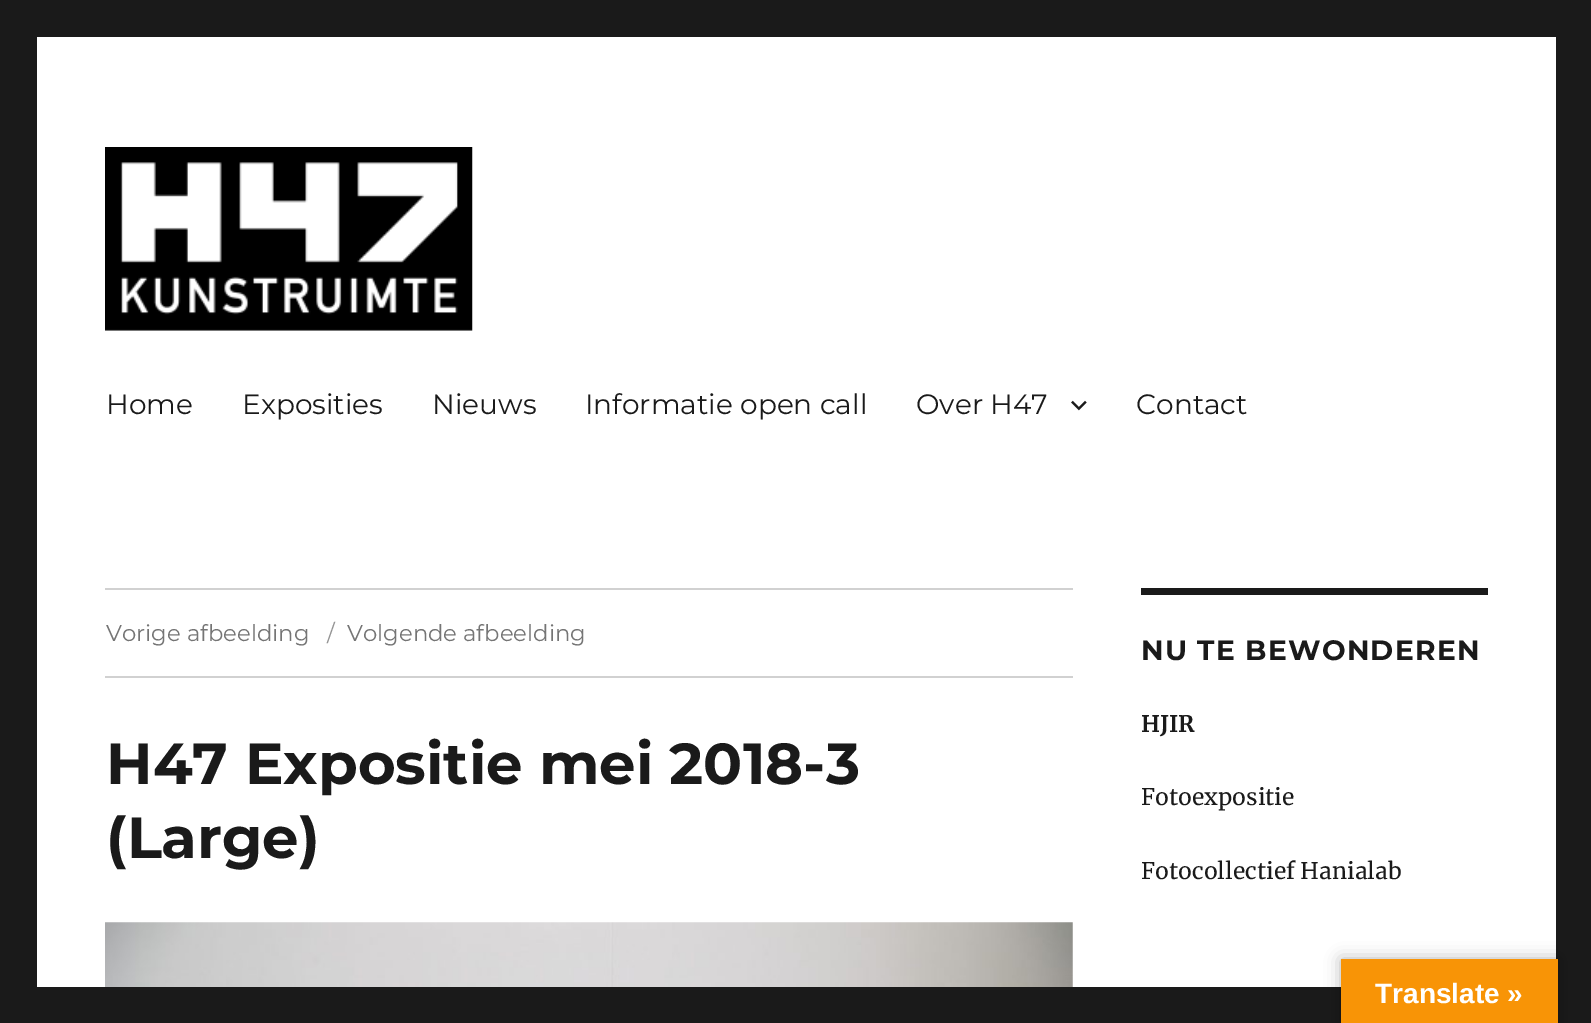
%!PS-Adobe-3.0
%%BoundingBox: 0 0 1591 1023
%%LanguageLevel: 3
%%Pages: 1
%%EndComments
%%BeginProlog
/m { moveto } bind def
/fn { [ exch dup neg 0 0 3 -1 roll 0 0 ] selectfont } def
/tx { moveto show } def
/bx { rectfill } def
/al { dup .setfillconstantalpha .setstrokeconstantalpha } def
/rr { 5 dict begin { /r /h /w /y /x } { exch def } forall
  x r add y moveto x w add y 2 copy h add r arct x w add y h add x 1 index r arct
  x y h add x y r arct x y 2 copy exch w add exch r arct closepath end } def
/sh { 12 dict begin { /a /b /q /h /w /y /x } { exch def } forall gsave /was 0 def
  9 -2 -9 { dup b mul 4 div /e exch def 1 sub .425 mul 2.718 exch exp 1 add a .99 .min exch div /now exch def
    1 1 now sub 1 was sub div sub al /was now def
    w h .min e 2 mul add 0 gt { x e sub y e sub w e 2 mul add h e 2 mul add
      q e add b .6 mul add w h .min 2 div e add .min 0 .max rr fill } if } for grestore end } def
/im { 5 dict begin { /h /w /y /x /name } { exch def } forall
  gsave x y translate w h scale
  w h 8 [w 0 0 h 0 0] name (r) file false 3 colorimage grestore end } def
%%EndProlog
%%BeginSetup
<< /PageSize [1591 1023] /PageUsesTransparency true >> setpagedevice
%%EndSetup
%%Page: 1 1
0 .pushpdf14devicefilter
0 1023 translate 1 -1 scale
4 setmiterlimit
0.102 setgray
0 0 1591 1023 bx
1 setgray
37 37 1519 950 bx
(image0.raw) 105 147 368 184 im
/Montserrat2-Thin 28 fn
0.102 setgray
(Home) 106 414 tx
(Exposities) 242 414 tx
(Nieuws) 432 414 tx
(Informatie open call) 585 414 tx
(Over H47) 916 414 tx
(image1.raw) 1071 400 16 11 im
(Contact) 1136 414 tx
0.82 setgray
105 588 968 2 bx
105 676 968 2 bx
/Montserrat2-Thin 22.75 fn
0.459 setgray
(Vorige afbeelding) 106 641 tx
0.584 setgray
(/) 327 641 tx
0.459 setgray
(Volgende afbeelding) 347 641 tx
/Montserrat-Thin 57.75 fn
0.102 setgray
(H47 Expositie mei 2018-3) 106 784 tx
(\(Large\)) 106 858 tx
(image2.raw) 105 922 968 65 im
1141 588 347 7 bx
/Montserrat-Thin 28 fn
1141 660 m 1.25 0 (NU TE BEWONDEREN) ashow
/Merriweather-Bold 22.75 fn
(HJIR) 1141 732 tx
/Merriweather-Regular 22.75 fn
(Fotoexpositie) 1141 805 tx
(Fotocollectief Hanialab) 1141 879 tx
0 setgray
1341 959 217 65 0 8 0.3 sh
0.973 0.58 0.024 setrgbcolor
1341 959 217 64 bx
/LiberationSans-Bold 28 fn
1 setgray
(Translate ») 1375 1003 tx
.poppdf14devicefilter showpage
%%EOF
